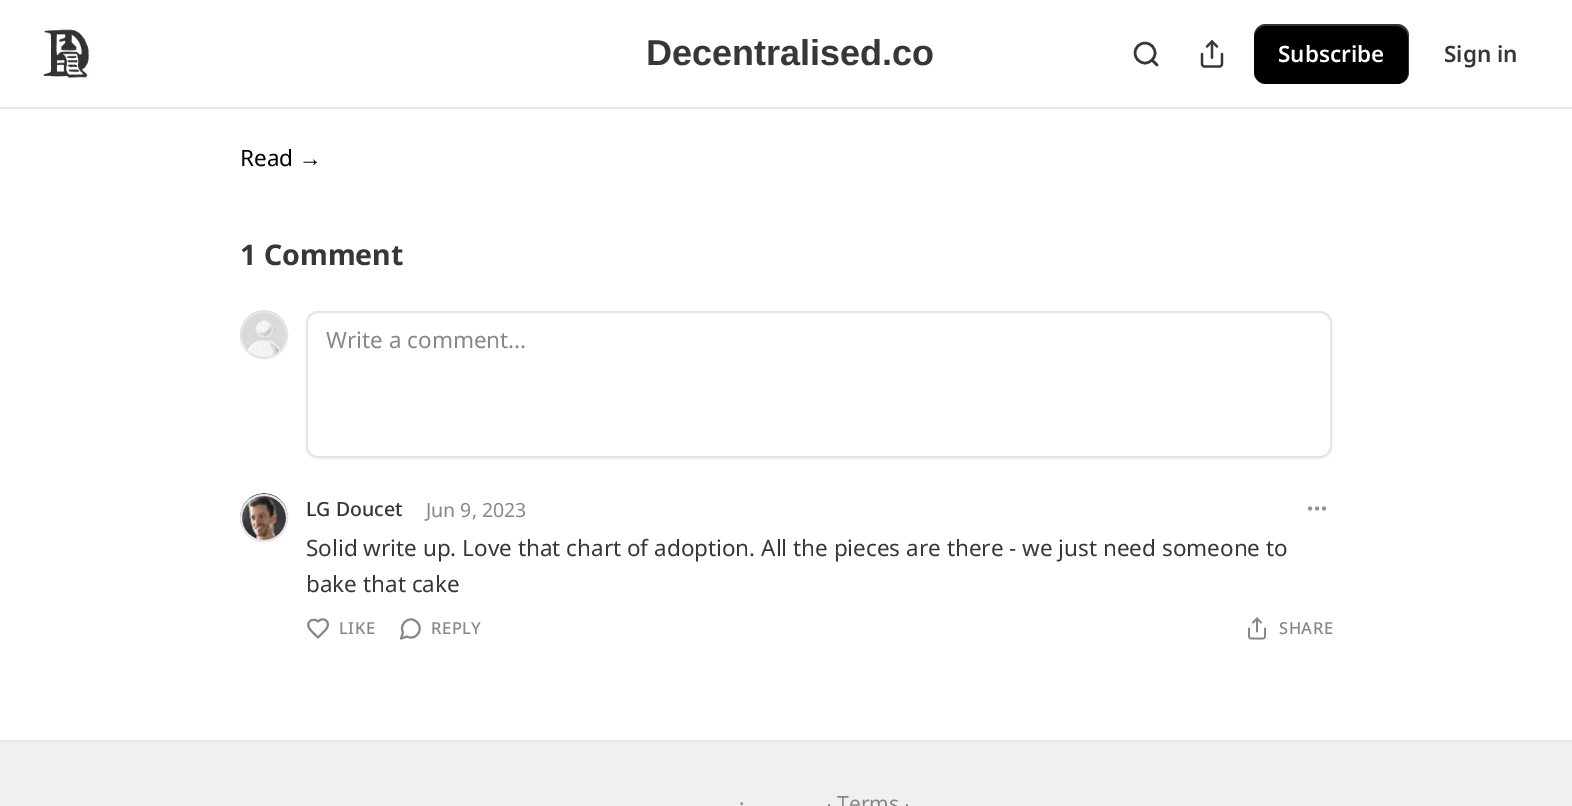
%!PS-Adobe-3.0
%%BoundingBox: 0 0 1572 806
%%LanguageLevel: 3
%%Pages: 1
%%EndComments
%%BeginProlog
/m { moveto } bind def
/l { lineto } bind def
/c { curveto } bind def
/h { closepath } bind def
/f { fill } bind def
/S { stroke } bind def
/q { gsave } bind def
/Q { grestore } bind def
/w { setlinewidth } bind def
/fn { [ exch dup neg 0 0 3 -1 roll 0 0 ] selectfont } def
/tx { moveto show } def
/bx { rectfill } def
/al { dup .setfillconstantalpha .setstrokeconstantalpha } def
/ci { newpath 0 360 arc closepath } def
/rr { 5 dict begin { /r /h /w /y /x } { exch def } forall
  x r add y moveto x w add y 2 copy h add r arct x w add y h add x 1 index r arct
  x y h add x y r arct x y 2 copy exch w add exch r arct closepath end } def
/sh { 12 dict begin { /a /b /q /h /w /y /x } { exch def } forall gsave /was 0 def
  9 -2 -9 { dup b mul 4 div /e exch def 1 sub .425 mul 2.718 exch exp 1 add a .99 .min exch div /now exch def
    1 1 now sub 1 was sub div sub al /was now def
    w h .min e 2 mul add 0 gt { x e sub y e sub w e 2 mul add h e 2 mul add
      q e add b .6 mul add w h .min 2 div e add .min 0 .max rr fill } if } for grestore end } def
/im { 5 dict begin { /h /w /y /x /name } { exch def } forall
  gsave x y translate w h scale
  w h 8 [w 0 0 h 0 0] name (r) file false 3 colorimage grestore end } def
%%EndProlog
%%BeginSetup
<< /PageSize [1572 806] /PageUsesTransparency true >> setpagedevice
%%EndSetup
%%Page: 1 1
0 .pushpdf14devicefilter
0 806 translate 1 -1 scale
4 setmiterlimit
1 setgray
0 0 1572 806 bx
0.902 setgray
0 107 1572 2 bx
(image0.raw) 43 29 47 49 im
/LiberationSans-Bold 36 fn
0.212 0.216 0.216 setrgbcolor
(Decentralised.co) 646 65 tx
2.5 w
1145 53 10 ci S
1 setlinecap
1 setlinejoin
1157 65 m 1152 60 l S
(image1.raw) 1200 40 24 28 im
0 setgray
1254 24 155 60 12 rr f
0.1 al
1254 70 m 1254 72 l 1254 79 1259 84 1266 84 c 1397 84 l 1404 84 1409 79 1409 72 c 1409 36 l 1409 34 1408 31 1407 29 c 1408 34 l 1408 70 l 1408 77 1403 82 1396 82 c 1266 82 l 1259 82 1254 77 1254 70 c h f
0.2 al
1 setgray
1266 26 m 1396 26 l 1403 26 1408 31 1408 38 c 1408 74 l 1407 79 l 1408 77 1409 74 1409 72 c 1409 36 l 1409 29 1404 24 1397 24 c 1266 24 l 1259 24 1254 29 1254 36 c 1254 38 l 1254 31 1259 26 1266 26 c h f
/NotoSans-SemiBold 22.5 fn
1 al
(Subscribe) 1278 62 tx
0.212 0.216 0.216 setrgbcolor
(Sign in) 1444 62 tx
/NotoSans-Regular 22.5 fn
0 setgray
(Read) 240 166 tx
/LiberationSans-Regular 22.5 fn
(→) 299 166 tx
/NotoSans-Bold 28.5 fn
0.212 0.216 0.216 setrgbcolor
(1 Comment) 240 265 tx
0.902 setgray
2 w
0 setlinecap
0 setlinejoin
264 335 23 ci S
(image2.raw) 240 310 48 47 im
264 335 23 ci S
0 setgray
306 312 1026 147 12 1.5 0.05 sh
1 setgray
307 312 1024 145 11 rr q f Q
0.902 setgray
S
/NotoSans-Regular 22.5 fn
0.525 0.529 0.529 setrgbcolor
(Write a comment...) 326 348 tx
0.902 setgray
264 518 23 ci S
(image3.raw) 240 493 48 47 im
264 518 23 ci S
/NotoSans-Medium 19.5 fn
0.212 0.216 0.216 setrgbcolor
(LG Doucet) 306 516 tx
/NotoSans-Regular 19.5 fn
0.525 0.529 0.529 setrgbcolor
(Jun 9, 2023) 426 517 tx
0.573 setgray
1317 508.5 1 ci S
1324 508.5 1 ci S
1310 508.5 1 ci S
/NotoSans-Regular 22.5 fn
0.212 0.216 0.216 setrgbcolor
(Solid write up. Love that chart of adoption. All the pieces are there - we just need someone to) 306 556 tx
(bake that cake) 306 592 tx
0.525 0.529 0.529 setrgbcolor
1 setlinecap
1 setlinejoin
325 630.5 m 332.5 623 324 615.5 318 621.5 c 314 617.5 306.5 620.5 308.5 626.5 c 309.5 630 315.5 635 318 637.5 c h S
/NotoSans-Medium 16.5 fn
339 634 m 0.5 0 (LIKE) ashow
407 636.5 m 417.5 642 425.5 625.5 414.5 620.5 c 412.5 619 409.5 619 407 620.5 c 402.5 622.5 400.5 628 403 632.5 c 401 638.5 l h S
431 634 m 0.5 0 (REPLY) ashow
(image4.raw) 1248 617 18 23 im
1279 634 m 0.5 0 (SHARE) ashow
0.941 setgray
0 742 1572 64 bx
0.902 setgray
0 740 1572 2 bx
/NotoSans-Regular 21 fn
0.525 0.529 0.529 setrgbcolor
(·) 739 811 tx
/LiberationSans-Regular 21 fn
(∙) 826 811 tx
/NotoSans-Regular 21 fn
(Terms) 837 811 tx
/LiberationSans-Regular 21 fn
(∙) 904 811 tx
.poppdf14devicefilter showpage
%%EOF
